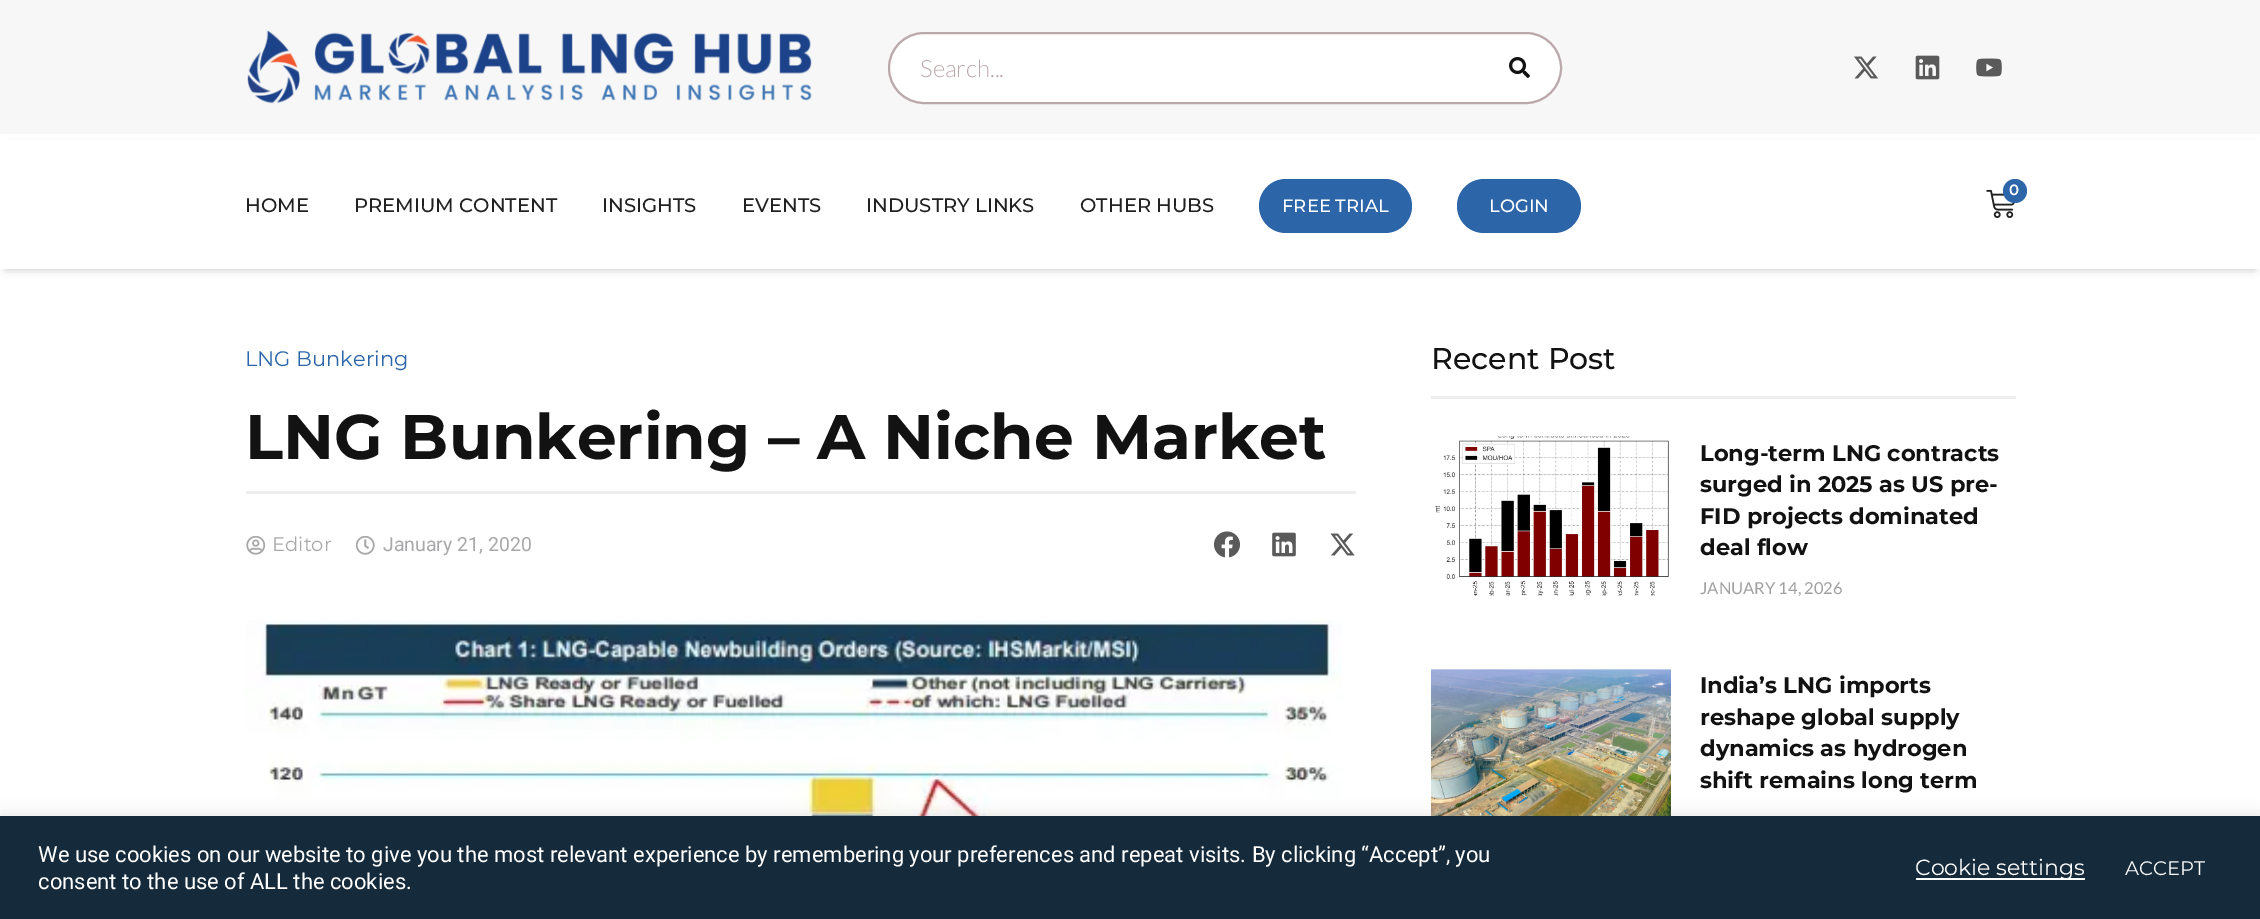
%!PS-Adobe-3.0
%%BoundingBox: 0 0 2260 919
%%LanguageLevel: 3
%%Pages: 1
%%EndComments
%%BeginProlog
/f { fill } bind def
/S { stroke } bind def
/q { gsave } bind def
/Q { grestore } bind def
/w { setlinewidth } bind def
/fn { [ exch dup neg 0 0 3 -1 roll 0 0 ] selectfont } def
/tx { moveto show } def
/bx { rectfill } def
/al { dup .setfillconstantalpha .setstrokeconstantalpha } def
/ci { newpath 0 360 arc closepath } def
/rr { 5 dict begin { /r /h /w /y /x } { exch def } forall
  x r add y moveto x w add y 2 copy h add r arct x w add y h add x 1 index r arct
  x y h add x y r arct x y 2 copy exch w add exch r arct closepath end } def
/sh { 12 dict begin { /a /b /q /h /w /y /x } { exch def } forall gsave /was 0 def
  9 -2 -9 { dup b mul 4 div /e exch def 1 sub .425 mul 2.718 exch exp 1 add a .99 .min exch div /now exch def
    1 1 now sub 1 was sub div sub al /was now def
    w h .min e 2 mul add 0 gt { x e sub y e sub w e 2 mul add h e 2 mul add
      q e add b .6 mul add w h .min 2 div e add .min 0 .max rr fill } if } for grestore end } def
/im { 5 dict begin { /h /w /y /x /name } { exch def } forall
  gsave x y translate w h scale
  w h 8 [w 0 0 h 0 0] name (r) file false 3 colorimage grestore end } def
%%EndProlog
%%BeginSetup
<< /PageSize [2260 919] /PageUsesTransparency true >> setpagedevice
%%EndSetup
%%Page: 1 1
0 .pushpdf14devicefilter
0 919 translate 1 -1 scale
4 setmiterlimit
1 setgray
0 0 2260 919 bx
0.969 setgray
0 0 2260 134 bx
(image0.raw) 247 30 565 74 im
1 setgray
889 33 672 70 35 rr q f Q
0.733 0.659 0.667 setrgbcolor
2 w
S
/Lato-Light 24 fn
(Search...) 920 77 tx
(image1.raw) 1509 57 21 21 im
(image2.raw) 1854 56 24 23 im
(image3.raw) 1915 55 25 25 im
(image4.raw) 1976 58 26 19 im
0 setgray
6 147 2249 123 0 4 0.2 sh
1 setgray
0 140 2260 129 bx
(image5.raw) 1986 189 29 30 im
0.176 0.396 0.663 setrgbcolor
2015 191 12 ci f
/Montserrat-SemiBold 15 fn
1 setgray
(0) 2009 195 tx
/Montserrat-Medium 19.5 fn
0.129 setgray
(HOME) 245 212 tx
(PREMIUM CONTENT) 354 212 tx
(INSIGHTS) 602 212 tx
(EVENTS) 742 212 tx
(INDUSTRY LINKS) 866 212 tx
(OTHER HUBS) 1080 212 tx
0.176 0.396 0.663 setrgbcolor
1259 179 153 54 27 rr f
/Montserrat-Medium 18 fn
1 setgray
(FREE TRIAL) 1282 212 tx
0.176 0.396 0.663 setrgbcolor
1457 179 124 54 27 rr f
1 setgray
(LOGIN) 1489 212 tx
/Montserrat-Regular 21 fn
0.176 0.396 0.663 setrgbcolor
(LNG Bunkering) 245 366 tx
/Montserrat-Bold 63 fn
0.071 setgray
(LNG Bunkering – A Niche Market) 245 459 tx
0.933 setgray
246 491 1110 3 bx
(image6.raw) 246 536 20 19 im
/Montserrat-Regular 19.5 fn
0.659 0.659 0.667 setrgbcolor
(Editor) 272 551 tx
(image7.raw) 356 536 19 19 im
/Roboto-Regular 19.5 fn
(January 21, 2020) 383 551 tx
(image8.raw) 1214 531 27 27 im
(image9.raw) 1272 532 24 25 im
(image10.raw) 1330 533 25 23 im
(image11.raw) 246 620 1096 196 im
/Montserrat-Medium 30 fn
0.071 setgray
(Recent Post) 1431 369 tx
0.933 setgray
1431 396 585 3 bx
(image12.raw) 1435 436 234 160 im
/Montserrat-Bold 22.5 fn
0.071 setgray
(Long-term LNG contracts) 1700 461 tx
(surged in 2025 as US pre-) 1700 492 tx
(FID projects dominated) 1700 524 tx
(deal flow) 1700 555 tx
/Lato-Regular 16.5 fn
0.627 setgray
(JANUARY 14, 2026) 1700 594 tx
(image13.raw) 1431 669 240 147 im
/Montserrat-Bold 22.5 fn
0.071 setgray
(India’s LNG imports) 1700 693 tx
(reshape global supply) 1700 725 tx
(dynamics as hydrogen) 1700 756 tx
(shift remains long term) 1700 788 tx
0.675 0.671 0.671 setrgbcolor
0 815 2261 103 0 7.5 0.3 sh
0.082 0.169 0.235 setrgbcolor
0 816 2260 103 bx
/Roboto-Regular 22 fn
1 setgray
(We use cookies on our website to give you the most relevant experience by remembering your preferences and repeat visits. By clicking “Accept”, you) 38 862 tx
(consent to the use of ALL the cookies.) 38 889 tx
1916 878 169 2 bx
/Montserrat-Regular 22 fn
(Cookie settings) 1915 875 tx
/Montserrat-Regular 19.5 fn
(ACCEPT) 2125 875 tx
.poppdf14devicefilter showpage
%%EOF
